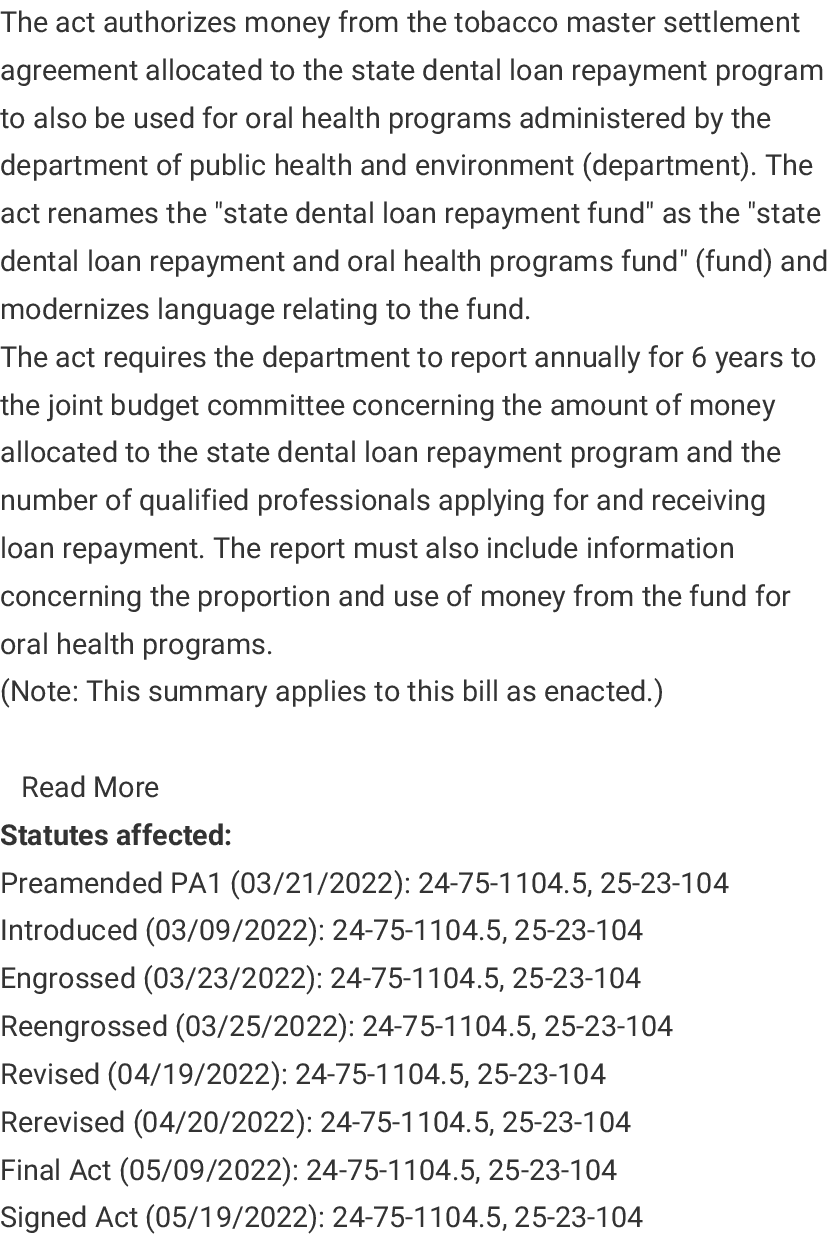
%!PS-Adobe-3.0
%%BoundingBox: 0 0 827 1240
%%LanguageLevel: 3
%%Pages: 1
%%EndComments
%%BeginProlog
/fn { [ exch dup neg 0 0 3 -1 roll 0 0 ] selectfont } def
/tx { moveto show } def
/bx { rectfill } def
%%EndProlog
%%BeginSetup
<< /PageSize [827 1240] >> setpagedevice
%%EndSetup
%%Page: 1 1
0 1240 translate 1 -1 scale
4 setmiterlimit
1 setgray
0 0 827 1240 bx
/Roboto-Regular 28.8 fn
0.2 setgray
(The act authorizes money from the tobacco master settlement) 0 32 tx
(agreement allocated to the state dental loan repayment program) 0 80 tx
(to also be used for oral health programs administered by the) 0 128 tx
(department of public health and environment \(department\). The) 0 175 tx
(act renames the "state dental loan repayment fund" as the "state) 0 223 tx
(dental loan repayment and oral health programs fund" \(fund\) and) 0 271 tx
(modernizes language relating to the fund.) 0 319 tx
(The act requires the department to report annually for 6 years to) 0 367 tx
(the joint budget committee concerning the amount of money) 0 415 tx
(allocated to the state dental loan repayment program and the) 0 462 tx
(number of qualified professionals applying for and receiving) 0 510 tx
(loan repayment. The report must also include information) 0 558 tx
(concerning the proportion and use of money from the fund for) 0 606 tx
(oral health programs.) 0 654 tx
(\(Note: This summary applies to this bill as enacted.\)) 0 701 tx
(Read More) 21 797 tx
/Roboto-Bold 28.8 fn
(Statutes affected:) 0 845 tx
/Roboto-Regular 28.8 fn
(Preamended PA1 \(03/21/2022\): 24-75-1104.5, 25-23-104) 0 893 tx
(Introduced \(03/09/2022\): 24-75-1104.5, 25-23-104) 0 940 tx
(Engrossed \(03/23/2022\): 24-75-1104.5, 25-23-104) 0 988 tx
(Reengrossed \(03/25/2022\): 24-75-1104.5, 25-23-104) 0 1036 tx
(Revised \(04/19/2022\): 24-75-1104.5, 25-23-104) 0 1084 tx
(Rerevised \(04/20/2022\): 24-75-1104.5, 25-23-104) 0 1132 tx
(Final Act \(05/09/2022\): 24-75-1104.5, 25-23-104) 0 1180 tx
(Signed Act \(05/19/2022\): 24-75-1104.5, 25-23-104) 0 1227 tx
showpage
%%EOF
